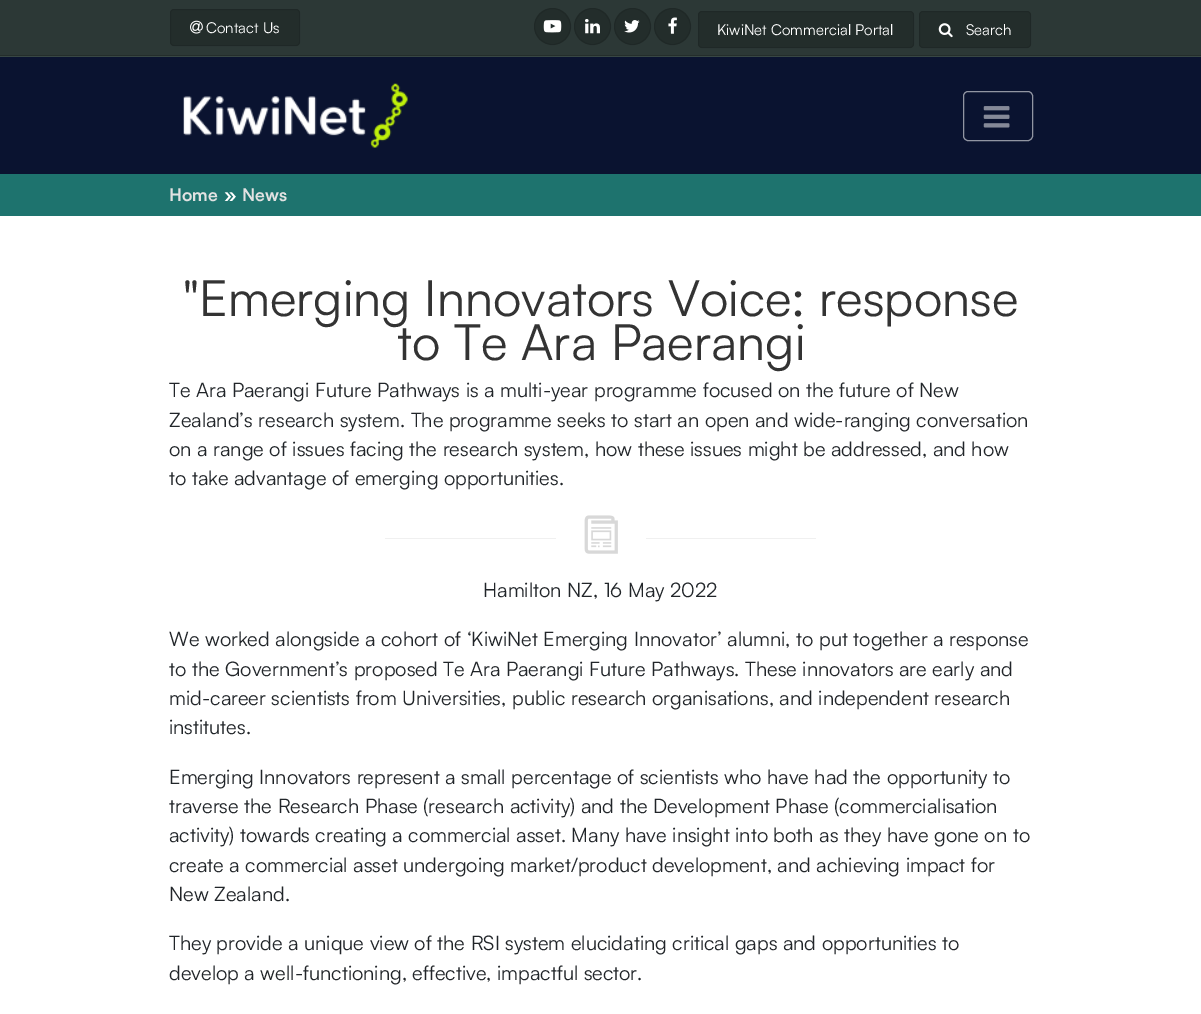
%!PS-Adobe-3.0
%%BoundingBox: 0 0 1201 1014
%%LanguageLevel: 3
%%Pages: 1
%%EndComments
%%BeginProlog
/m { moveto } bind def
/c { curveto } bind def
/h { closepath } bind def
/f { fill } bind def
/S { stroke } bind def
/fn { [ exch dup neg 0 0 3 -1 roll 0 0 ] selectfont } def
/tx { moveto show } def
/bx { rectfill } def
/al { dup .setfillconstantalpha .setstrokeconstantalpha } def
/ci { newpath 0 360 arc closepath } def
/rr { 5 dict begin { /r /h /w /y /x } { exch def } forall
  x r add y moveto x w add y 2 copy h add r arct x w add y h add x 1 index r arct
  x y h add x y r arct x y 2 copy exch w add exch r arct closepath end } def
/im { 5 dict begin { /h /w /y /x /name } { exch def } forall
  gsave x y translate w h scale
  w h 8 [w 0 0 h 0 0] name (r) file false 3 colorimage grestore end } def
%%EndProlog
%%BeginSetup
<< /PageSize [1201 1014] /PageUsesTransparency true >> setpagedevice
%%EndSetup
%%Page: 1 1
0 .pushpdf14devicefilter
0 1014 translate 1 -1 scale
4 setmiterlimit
1 setgray
0 0 1201 1014 bx
0.173 0.22 0.212 setrgbcolor
0 0 1201 55 bx
0.141 0.176 0.169 setrgbcolor
0 55 1201 1 bx
0.137 0.176 0.169 setrgbcolor
170 9 130 37 4 rr f
0.1 al
0 setgray
170.5 9.5 129 36 3.5 rr S
1 al
(image0.raw) 190 20 13 14 im
/Satoshi-Regular 15 fn
1 setgray
(Contact Us) 206 33 tx
0.137 0.176 0.169 setrgbcolor
552.5 26.5 18.5 ci f
0.1 al
0 setgray
552.5 26.5 18 ci S
1 al
(image1.raw) 543 20 19 13 im
0.137 0.176 0.169 setrgbcolor
592.5 26.5 18.5 ci f
0.1 al
0 setgray
592.5 26.5 18 ci S
1 al
(image2.raw) 585 19 15 15 im
0.137 0.176 0.169 setrgbcolor
632.5 26.5 18.5 ci f
0.1 al
0 setgray
632.5 26.5 18 ci S
1 al
(image3.raw) 624 20 16 13 im
0.137 0.176 0.169 setrgbcolor
672.5 26.5 18.5 ci f
0.1 al
0 setgray
672.5 26.5 18 ci S
1 al
(image4.raw) 668 17 9 17 im
0.137 0.176 0.169 setrgbcolor
698 11 216 37 4 rr f
0.1 al
0 setgray
698.5 11.5 215 36 3.5 rr S
1 al
1 setgray
(KiwiNet Commercial Portal) 717 35 tx
0.137 0.176 0.169 setrgbcolor
919 11 112 37 4 rr f
0.1 al
0 setgray
919.5 11.5 111 36 3.5 rr S
1 al
(image5.raw) 938 23 15 15 im
1 setgray
(Search) 966 35 tx
0.039 0.075 0.188 setrgbcolor
0 57 1201 117 bx
0.22 0.278 0.267 setrgbcolor
0 56 1201 1 bx
(image6.raw) 183 83 225 65 im
0.569 0.584 0.635 setrgbcolor
963.5 91.5 69 49 4.5 rr S
(image7.raw) 983 106 27 22 im
0.118 0.451 0.431 setrgbcolor
0 174 1201 42 bx
/Satoshi-Bold 17.5 fn
0.886 setgray
(Home) 169 201 tx
1 setgray
(») 224 201 tx
0.886 setgray
(News) 242 201 tx
/Satoshi-Regular 50 fn
0.2 setgray
("Emerging Innovators Voice: response) 183 316 tx
(to Te Ara Paerangi) 397 360 tx
/Satoshi-Regular 20 fn
0.129 0.145 0.161 setrgbcolor
(Te Ara Paerangi Future Pathways is a multi-year programme focused on the future of New) 169 397 tx
(Zealand’s research system. The programme seeks to start an open and wide-ranging conversation) 169 427 tx
(on a range of issues facing the research system, how these issues might be addressed, and how) 169 456 tx
(to take advantage of emerging opportunities.) 169 485 tx
0.941 setgray
385 538 431 1 bx
1 setgray
601 514 m 626 514 646 525 646 539 c 646 553 626 564 601 564 c 576 564 556 553 556 539 c 556 525 576 514 601 514 c h f
(image8.raw) 584 515 34 39 im
0.129 0.145 0.161 setrgbcolor
(Hamilton NZ, 16 May 2022) 483 597 tx
(We worked alongside a cohort of ‘KiwiNet Emerging Innovator’ alumni, to put together a response) 169 646 tx
(to the Government’s proposed Te Ara Paerangi Future Pathways. These innovators are early and) 169 676 tx
(mid-career scientists from Universities, public research organisations, and independent research) 169 705 tx
(institutes.) 169 734 tx
(Emerging Innovators represent a small percentage of scientists who have had the opportunity to) 169 784 tx
(traverse the Research Phase \(research activity\) and the Development Phase \(commercialisation) 169 813 tx
(activity\) towards creating a commercial asset. Many have insight into both as they have gone on to) 169 842 tx
(create a commercial asset undergoing market/product development, and achieving impact for) 169 872 tx
(New Zealand.) 169 901 tx
(They provide a unique view of the RSI system elucidating critical gaps and opportunities to) 169 950 tx
(develop a well-functioning, effective, impactful sector.) 169 980 tx
.poppdf14devicefilter showpage
%%EOF
